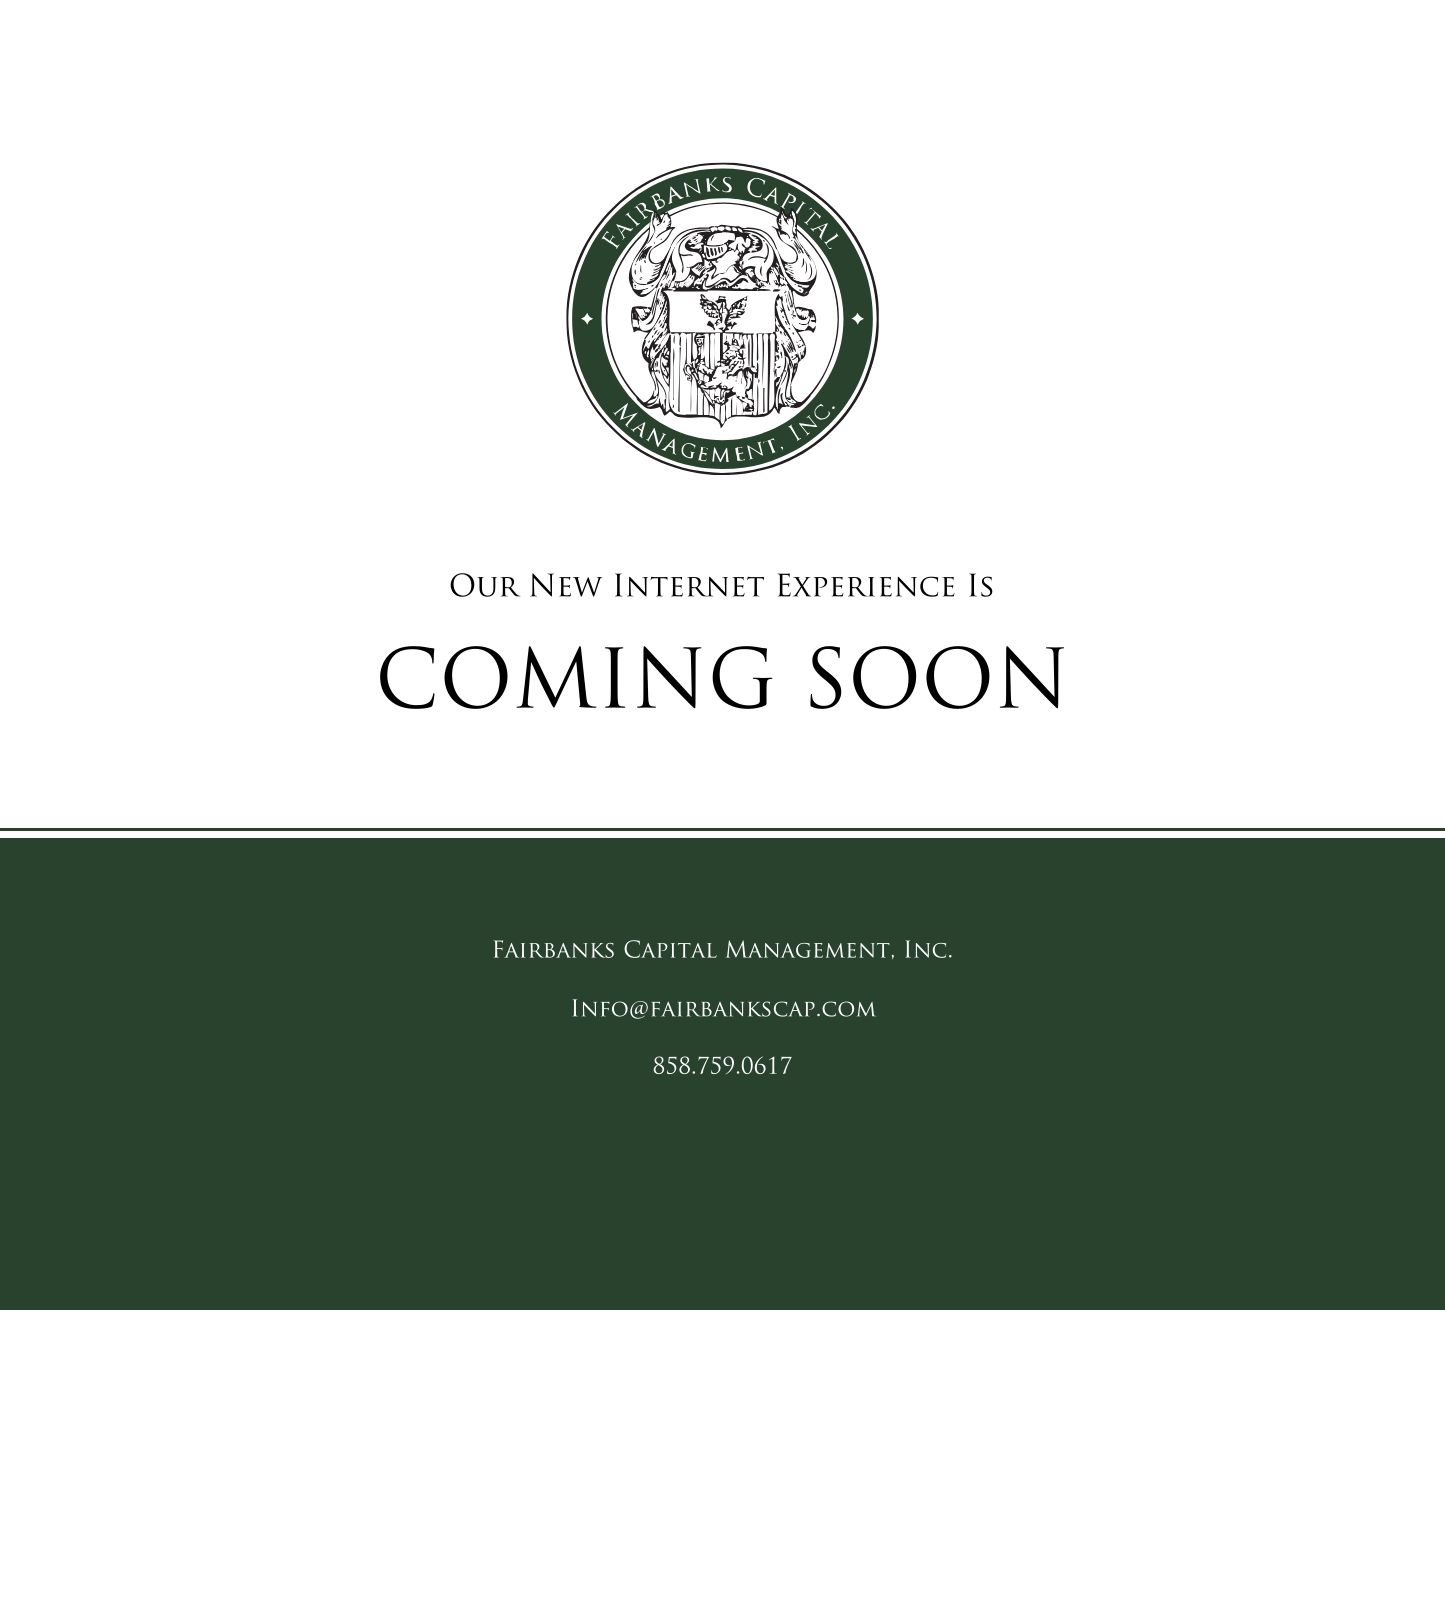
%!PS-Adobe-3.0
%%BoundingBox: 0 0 1445 1597
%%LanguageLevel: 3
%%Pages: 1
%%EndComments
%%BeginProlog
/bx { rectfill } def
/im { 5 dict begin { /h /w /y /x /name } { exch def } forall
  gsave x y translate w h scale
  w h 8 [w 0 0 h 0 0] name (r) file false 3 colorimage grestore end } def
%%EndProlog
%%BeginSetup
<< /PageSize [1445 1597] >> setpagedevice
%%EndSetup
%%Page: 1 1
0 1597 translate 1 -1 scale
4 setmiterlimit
1 setgray
0 0 1445 1597 bx
0.157 0.259 0.176 setrgbcolor
0 828 1445 3 bx
(image0.raw) 566 162 313 313 im
(image1.raw) 450 573 543 24 im
(image2.raw) 380 646 685 63 im
0 838 1445 472 bx
(image3.raw) 493 940 459 20 im
(image4.raw) 572 999 305 20 im
(image5.raw) 653 1056 139 19 im
showpage
%%EOF
